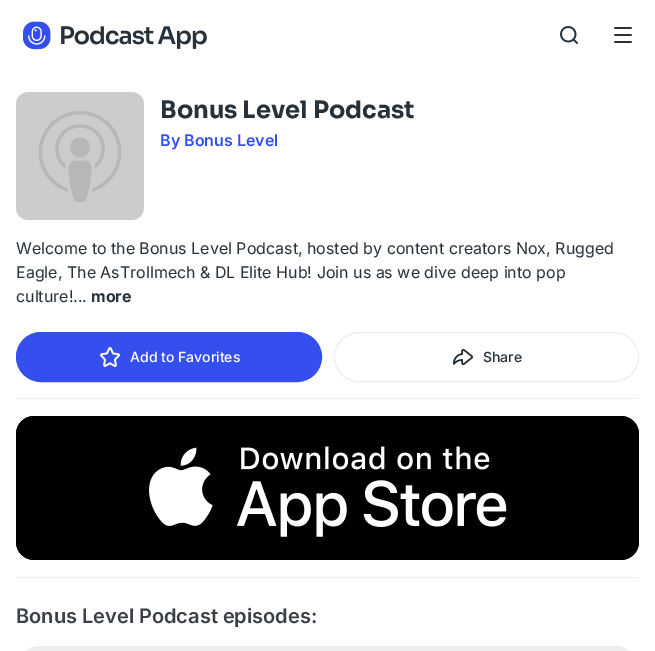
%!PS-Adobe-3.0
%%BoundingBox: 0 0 655 651
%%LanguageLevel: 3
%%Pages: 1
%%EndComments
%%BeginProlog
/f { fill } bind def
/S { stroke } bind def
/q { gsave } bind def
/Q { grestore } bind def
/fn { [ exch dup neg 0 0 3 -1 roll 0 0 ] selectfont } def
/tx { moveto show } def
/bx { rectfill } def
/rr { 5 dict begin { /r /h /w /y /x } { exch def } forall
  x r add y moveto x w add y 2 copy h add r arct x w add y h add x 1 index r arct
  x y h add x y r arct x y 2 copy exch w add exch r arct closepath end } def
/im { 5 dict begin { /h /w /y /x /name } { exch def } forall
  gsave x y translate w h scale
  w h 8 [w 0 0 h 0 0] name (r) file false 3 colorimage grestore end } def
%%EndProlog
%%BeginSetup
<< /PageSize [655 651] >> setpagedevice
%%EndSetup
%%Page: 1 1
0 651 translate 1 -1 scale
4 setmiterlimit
1 setgray
0 0 655 651 bx
(image0.raw) 23 21 184 29 im
(image1.raw) 560 26 18 18 im
(image2.raw) 614 27 18 16 im
(image3.raw) 16 92 128 128 im
/Sora-Bold 24 fn
0.153 0.192 0.227 setrgbcolor
(Bonus Level Podcast) 160 118 tx
/Inter-SemiBold 16 fn
0.208 0.31 0.933 setrgbcolor
(By Bonus Level) 160 146 tx
/Inter-Regular 16 fn
0.153 0.192 0.227 setrgbcolor
(Welcome to the Bonus Level Podcast, hosted by content creators Nox, Rugged) 16 254 tx
(Eagle, The AsTrollmech & DL Elite Hub! Join us as we dive deep into pop) 16 278 tx
(culture!...) 16 302 tx
/Inter-Bold 16 fn
(more) 91 302 tx
0.208 0.31 0.933 setrgbcolor
16.5 332.5 305 49 24.5 rr q f Q
S
(image4.raw) 100 347 20 20 im
/Inter-Medium 14 fn
1 setgray
(Add to Favorites) 130 362 tx
0.925 0.933 0.941 setrgbcolor
334.5 332.5 304 49 24.5 rr S
(image5.raw) 452 348 21 18 im
0.153 0.192 0.227 setrgbcolor
(Share) 483 362 tx
0.929 0.933 0.945 setrgbcolor
16 398 623 1 bx
(image6.raw) 16 416 623 144 im
16 577 623 1 bx
/Inter-SemiBold 20 fn
0.227 0.247 0.282 setrgbcolor
(Bonus Level Podcast episodes:) 16 623 tx
0.925 0.933 0.941 setrgbcolor
16 646 623 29 24 rr f
showpage
%%EOF
